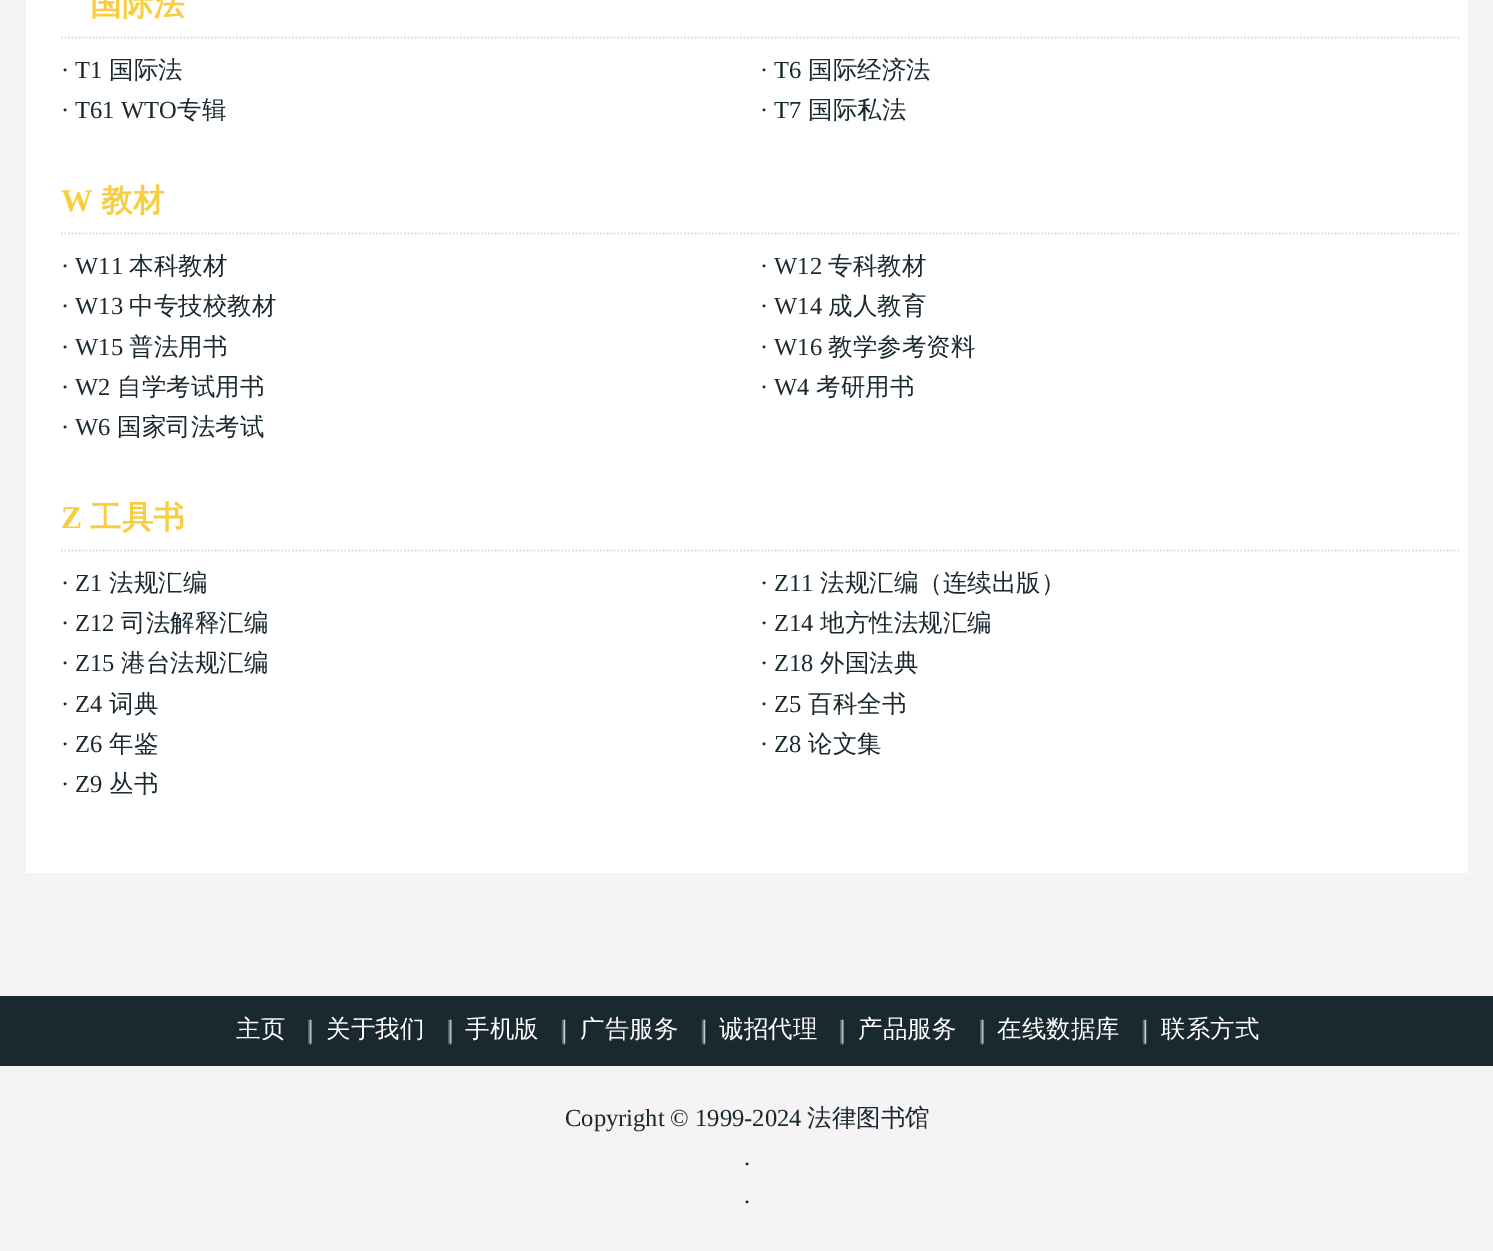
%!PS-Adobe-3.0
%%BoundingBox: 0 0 1493 1251
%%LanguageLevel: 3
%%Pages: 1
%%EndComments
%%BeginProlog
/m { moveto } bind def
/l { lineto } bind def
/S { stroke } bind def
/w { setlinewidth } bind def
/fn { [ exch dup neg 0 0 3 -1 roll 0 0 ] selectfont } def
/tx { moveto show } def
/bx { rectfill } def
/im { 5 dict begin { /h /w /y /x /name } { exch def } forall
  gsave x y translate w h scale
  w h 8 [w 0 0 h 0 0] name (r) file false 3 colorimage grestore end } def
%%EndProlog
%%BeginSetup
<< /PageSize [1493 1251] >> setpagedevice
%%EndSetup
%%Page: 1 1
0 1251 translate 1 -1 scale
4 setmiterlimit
0.961 0.953 0.957 setrgbcolor
0 0 1493 1251 bx
1 setgray
26 0 1442 873 bx
0.867 setgray
1.8 w
[1.75 1.75] 0 setdash
61 37.5 m 1459.5 37.5 l S
/WenQuanYiZenHei-Bold 31.5 fn
0.969 0.808 0.251 setrgbcolor
(国际法) 90 15 tx
/LiberationSerif-Regular 24.5 fn
0.102 0.161 0.188 setrgbcolor
(· T1) 61 78 tx
/WenQuanYiZenHei-Medium 24.5 fn
(国际法) 109 78 tx
/LiberationSerif-Regular 24.5 fn
(· T6) 760 78 tx
/WenQuanYiZenHei-Medium 24.5 fn
(国际经济法) 808 78 tx
/LiberationSerif-Regular 24.5 fn
(· T61 WTO) 61 118 tx
/WenQuanYiZenHei-Medium 24.5 fn
(专辑) 177 118 tx
/LiberationSerif-Regular 24.5 fn
(· T7) 760 118 tx
/WenQuanYiZenHei-Medium 24.5 fn
(国际私法) 808 118 tx
0.867 setgray
61 233.5 m 1459.5 233.5 l S
/LiberationSerif-Bold 31.5 fn
0.969 0.808 0.251 setrgbcolor
(W) 61 211 tx
/WenQuanYiZenHei-Bold 31.5 fn
(教材) 101 211 tx
/LiberationSerif-Regular 24.5 fn
0.102 0.161 0.188 setrgbcolor
(· W11) 61 274 tx
/WenQuanYiZenHei-Medium 24.5 fn
(本科教材) 129 274 tx
/LiberationSerif-Regular 24.5 fn
(· W12) 760 274 tx
/WenQuanYiZenHei-Medium 24.5 fn
(专科教材) 828 274 tx
/LiberationSerif-Regular 24.5 fn
(· W13) 61 314 tx
/WenQuanYiZenHei-Medium 24.5 fn
(中专技校教材) 129 314 tx
/LiberationSerif-Regular 24.5 fn
(· W14) 760 314 tx
/WenQuanYiZenHei-Medium 24.5 fn
(成人教育) 828 314 tx
/LiberationSerif-Regular 24.5 fn
(· W15) 61 355 tx
/WenQuanYiZenHei-Medium 24.5 fn
(普法用书) 129 355 tx
/LiberationSerif-Regular 24.5 fn
(· W16) 760 355 tx
/WenQuanYiZenHei-Medium 24.5 fn
(教学参考资料) 828 355 tx
/LiberationSerif-Regular 24.5 fn
(· W2) 61 395 tx
/WenQuanYiZenHei-Medium 24.5 fn
(自学考试用书) 117 395 tx
/LiberationSerif-Regular 24.5 fn
(· W4) 760 395 tx
/WenQuanYiZenHei-Medium 24.5 fn
(考研用书) 816 395 tx
/LiberationSerif-Regular 24.5 fn
(· W6) 61 435 tx
/WenQuanYiZenHei-Medium 24.5 fn
(国家司法考试) 117 435 tx
0.867 setgray
61 550.5 m 1459.5 550.5 l S
/LiberationSerif-Bold 31.5 fn
0.969 0.808 0.251 setrgbcolor
(Z) 61 528 tx
/WenQuanYiZenHei-Bold 31.5 fn
(工具书) 90 528 tx
/LiberationSerif-Regular 24.5 fn
0.102 0.161 0.188 setrgbcolor
(· Z1) 61 591 tx
/WenQuanYiZenHei-Medium 24.5 fn
(法规汇编) 109 591 tx
/LiberationSerif-Regular 24.5 fn
(· Z11) 760 591 tx
/WenQuanYiZenHei-Medium 24.5 fn
(法规汇编（连续出版）) 820 591 tx
/LiberationSerif-Regular 24.5 fn
(· Z12) 61 631 tx
/WenQuanYiZenHei-Medium 24.5 fn
(司法解释汇编) 121 631 tx
/LiberationSerif-Regular 24.5 fn
(· Z14) 760 631 tx
/WenQuanYiZenHei-Medium 24.5 fn
(地方性法规汇编) 820 631 tx
/LiberationSerif-Regular 24.5 fn
(· Z15) 61 671 tx
/WenQuanYiZenHei-Medium 24.5 fn
(港台法规汇编) 121 671 tx
/LiberationSerif-Regular 24.5 fn
(· Z18) 760 671 tx
/WenQuanYiZenHei-Medium 24.5 fn
(外国法典) 820 671 tx
/LiberationSerif-Regular 24.5 fn
(· Z4) 61 712 tx
/WenQuanYiZenHei-Medium 24.5 fn
(词典) 109 712 tx
/LiberationSerif-Regular 24.5 fn
(· Z5) 760 712 tx
/WenQuanYiZenHei-Medium 24.5 fn
(百科全书) 808 712 tx
/LiberationSerif-Regular 24.5 fn
(· Z6) 61 752 tx
/WenQuanYiZenHei-Medium 24.5 fn
(年鉴) 109 752 tx
/LiberationSerif-Regular 24.5 fn
(· Z8) 760 752 tx
/WenQuanYiZenHei-Medium 24.5 fn
(论文集) 808 752 tx
/LiberationSerif-Regular 24.5 fn
(· Z9) 61 792 tx
/WenQuanYiZenHei-Medium 24.5 fn
(丛书) 109 792 tx
0 996 1493 70 bx
1 setgray
(主页) 236 1037 tx
(image0.raw) 308 1019 4 26 im
(关于我们) 326 1037 tx
(image0.raw) 448 1019 4 26 im
(手机版) 465 1037 tx
(image1.raw) 561 1019 5 26 im
(广告服务) 580 1037 tx
(image2.raw) 701 1019 5 26 im
(诚招代理) 719 1037 tx
(image0.raw) 840 1019 4 26 im
(产品服务) 858 1037 tx
(image0.raw) 980 1019 4 26 im
(在线数据库) 997 1037 tx
(image1.raw) 1142 1019 5 26 im
(联系方式) 1161 1037 tx
/LiberationSerif-Regular 24.5 fn
0.102 0.161 0.188 setrgbcolor
(Copyright © 1999-2024) 565 1126 tx
/WenQuanYiZenHei-Medium 24.5 fn
(法律图书馆) 807 1126 tx
/LiberationSerif-Regular 24.5 fn
(.) 744 1165 tx
(.) 744 1203 tx
showpage
%%EOF
